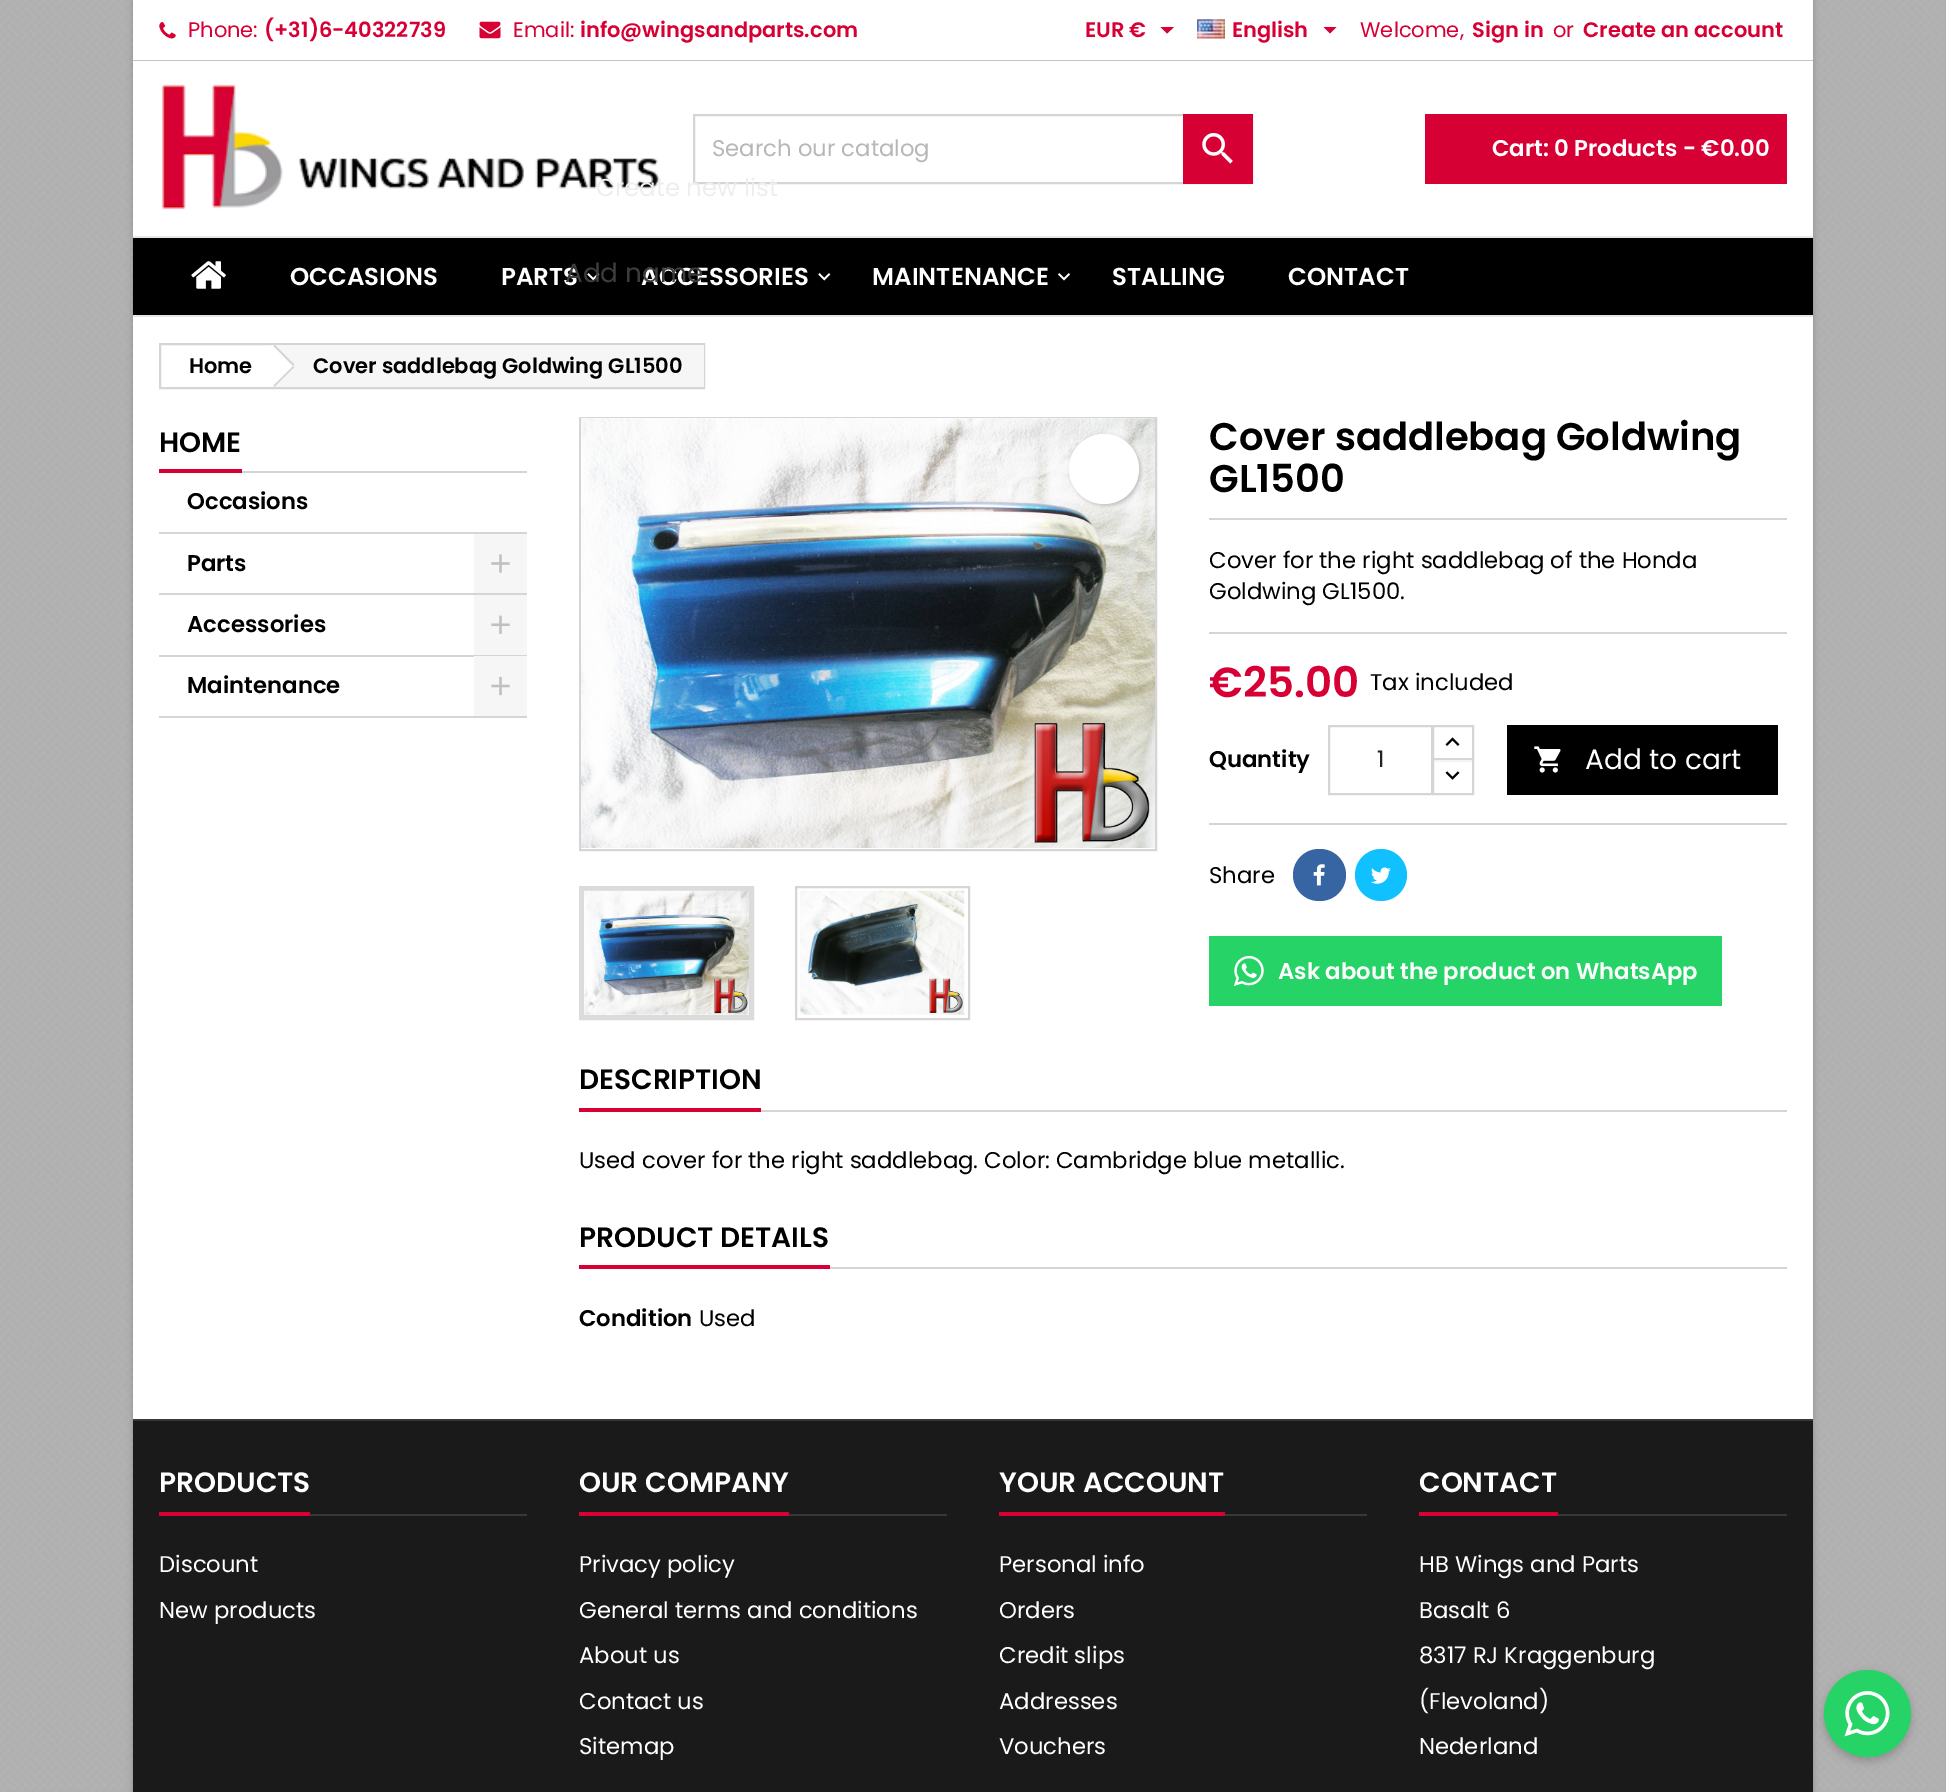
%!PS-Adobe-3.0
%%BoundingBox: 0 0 1946 1792
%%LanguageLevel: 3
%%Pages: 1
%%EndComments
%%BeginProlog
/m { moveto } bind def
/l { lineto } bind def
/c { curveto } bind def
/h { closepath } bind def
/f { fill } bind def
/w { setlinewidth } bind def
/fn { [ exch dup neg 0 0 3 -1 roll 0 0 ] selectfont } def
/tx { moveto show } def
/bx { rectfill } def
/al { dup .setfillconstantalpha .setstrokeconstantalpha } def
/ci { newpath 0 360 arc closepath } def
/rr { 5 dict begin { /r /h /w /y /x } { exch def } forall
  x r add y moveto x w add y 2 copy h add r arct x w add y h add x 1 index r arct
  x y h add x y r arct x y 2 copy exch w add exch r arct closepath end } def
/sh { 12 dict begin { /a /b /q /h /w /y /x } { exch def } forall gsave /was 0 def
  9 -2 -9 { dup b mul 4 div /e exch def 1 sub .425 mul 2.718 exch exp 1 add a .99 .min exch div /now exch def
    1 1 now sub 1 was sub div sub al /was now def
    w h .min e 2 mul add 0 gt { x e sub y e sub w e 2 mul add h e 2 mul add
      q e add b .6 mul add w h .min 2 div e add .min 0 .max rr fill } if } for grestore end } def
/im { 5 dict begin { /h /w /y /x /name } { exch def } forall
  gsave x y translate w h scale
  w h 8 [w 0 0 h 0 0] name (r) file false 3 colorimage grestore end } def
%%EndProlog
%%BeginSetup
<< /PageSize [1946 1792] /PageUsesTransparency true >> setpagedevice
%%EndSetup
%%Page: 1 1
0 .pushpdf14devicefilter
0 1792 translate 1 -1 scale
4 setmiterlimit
0.69 setgray
0 0 1946 1792 bx
(image0.raw) 0 0 1943 1790 im
0 setgray
133 0 1680 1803 0 3.5 0.2 sh
1 setgray
133 0 1680 1419 bx
0.769 0.761 0.761 setrgbcolor
133 60 1680 1 bx
(image1.raw) 159 22 17 17 im
/Poppins-Regular 21 fn
0.843 0 0.208 setrgbcolor
(Phone:) 188 37 tx
/Poppins-SemiBold 21 fn
(\(+31\)6-40322739) 264 37 tx
(image2.raw) 479 21 22 18 im
/Poppins-Regular 21 fn
(Email:) 513 37 tx
/Poppins-SemiBold 21 fn
(info@wingsandparts.com) 580 37 tx
(EUR €) 1085 37 tx
1160.5 27 m 1174 27 l 1167 33.5 l h f
(image3.raw) 1197 19 28 20 im
(English) 1232 37 tx
1323.5 27 m 1336.5 27 l 1330 33.5 l h f
/Poppins-Regular 21 fn
(Welcome,) 1360 37 tx
/Poppins-SemiBold 21 fn
(Sign in) 1472 37 tx
/Poppins-Regular 21 fn
(or) 1553 37 tx
/Poppins-SemiBold 21 fn
(Create an account) 1583 37 tx
(image4.raw) 161 84 499 126 im
0.839 0.831 0.831 setrgbcolor
2 w
694 115 558 68 rectstroke
/Poppins-Regular 22.75 fn
0.718 setgray
(Search our catalog) 712 156 tx
0.843 0 0.208 setrgbcolor
1183 114 70 70 bx
(image5.raw) 1202 133 31 31 im
1425 114 362 70 bx
/Poppins-SemiBold 22.75 fn
1 setgray
(Cart: 0 Products - €0.00) 1492 156 tx
0 setgray
133 238 1680 77 bx
0.902 setgray
133 236 1680 2 bx
133 315 1680 2 bx
(image6.raw) 191 261 35 28 im
/Poppins-SemiBold 24.5 fn
1 setgray
(OCCASIONS) 290 285 tx
(PARTS) 501 285 tx
(image7.raw) 587 273 13 8 im
(ACCESSORIES) 641 285 tx
(image7.raw) 818 273 13 8 im
(MAINTENANCE) 872 285 tx
(image8.raw) 1058 273 12 8 im
(STALLING) 1112 285 tx
(CONTACT) 1288 285 tx
0.106 0.102 0.106 setrgbcolor
133 1421 1680 371 bx
0.22 setgray
133 1419 1680 2 bx
/Poppins-Regular 24.5 fn
0.933 setgray
(Create new list) 596 196 tx
/Poppins-Regular 26.25 fn
0.239 setgray
(Add name) 565 282 tx
0.22 setgray
310 1514 217 2 bx
0.843 0 0.208 setrgbcolor
159 1512 151 4 bx
/Poppins-SemiBold 28 fn
1 setgray
(PRODUCTS) 159 1492 tx
/Poppins-Regular 22.75 fn
(Discount) 159 1572 tx
(New products) 159 1618 tx
0.22 setgray
789 1514 158 2 bx
0.843 0 0.208 setrgbcolor
579 1512 210 4 bx
/Poppins-SemiBold 28 fn
1 setgray
(OUR COMPANY) 579 1492 tx
/Poppins-Regular 22.75 fn
(Privacy policy) 579 1572 tx
(General terms and conditions) 579 1618 tx
(About us) 579 1663 tx
(Contact us) 579 1709 tx
(Sitemap) 579 1754 tx
0.22 setgray
1225 1514 142 2 bx
0.843 0 0.208 setrgbcolor
999 1512 226 4 bx
/Poppins-SemiBold 28 fn
1 setgray
(YOUR ACCOUNT) 999 1492 tx
/Poppins-Regular 22.75 fn
(Personal info) 999 1572 tx
(Orders) 999 1618 tx
(Credit slips) 999 1663 tx
(Addresses) 999 1709 tx
(Vouchers) 999 1754 tx
0.22 setgray
1558 1514 229 2 bx
0.843 0 0.208 setrgbcolor
1419 1512 139 4 bx
/Poppins-SemiBold 28 fn
1 setgray
(CONTACT) 1419 1492 tx
/Poppins-Regular 22.75 fn
(HB Wings and Parts) 1419 1572 tx
(Basalt 6) 1419 1618 tx
(8317 RJ Kraggenburg) 1419 1663 tx
(\(Flevoland\)) 1419 1709 tx
(Nederland) 1419 1754 tx
0 setgray
1824 1673 87 88 43.5 4.5 0.2 sh
0.145 0.827 0.4 setrgbcolor
1867.5 1713.5 43.5 ci f
(image9.raw) 1844 1691 46 46 im
0.839 0.831 0.831 setrgbcolor
160 344 544 44 rectstroke
/Poppins-SemiBold 21 fn
0 setgray
(Home) 189 373 tx
0.965 setgray
275 345 429 42 bx
1 setgray
276 346 m 293 363 l 295 365 295 367 293 368 c 276 386 l 275 387 272 387 271 386 c 254 368 l 252 367 252 365 254 363 c 271 346 l 272 345 275 345 276 346 c h f
0.839 0.831 0.831 setrgbcolor
274.5 344.5 m 294.5 364.5 l 293 366 l 273.5 346 l h 293 366 m 294.5 367 l 274.5 387 l 273.5 385.5 l h f
0 setgray
(Cover saddlebag Goldwing GL1500) 313 373 tx
0.839 0.831 0.831 setrgbcolor
242 471 285 2 bx
0.843 0 0.208 setrgbcolor
159 469 83 4 bx
/Poppins-SemiBold 28 fn
0 setgray
(HOME) 159 452 tx
0.839 0.831 0.831 setrgbcolor
159 532 368 2 bx
/Poppins-SemiBold 22.75 fn
0 setgray
(Occasions) 187 509 tx
0.839 0.831 0.831 setrgbcolor
159 593 368 2 bx
0 setgray
(Parts) 187 571 tx
0.965 setgray
474 534 53 59 bx
(image10.raw) 491 554 19 19 im
0.839 0.831 0.831 setrgbcolor
159 655 368 2 bx
0 setgray
(Accessories) 187 632 tx
0.965 setgray
474 595 53 60 bx
(image11.raw) 491 615 19 19 im
0.839 0.831 0.831 setrgbcolor
159 716 368 2 bx
0 setgray
(Maintenance) 187 693 tx
0.965 setgray
474 656 53 60 bx
(image12.raw) 491 676 19 20 im
0.839 0.831 0.831 setrgbcolor
580 418 576 432 rectstroke
(image13.raw) 581 418 574 431 im
0.859 setgray
5 w
581.5 888.5 170 129 rectstroke
0.839 0.831 0.831 setrgbcolor
2 w
796 887 173 132 rectstroke
(image14.raw) 584 890 165 125 im
(image15.raw) 799 890 166 125 im
/Poppins-SemiBold 38.5 fn
0 setgray
(Cover saddlebag Goldwing) 1209 450 tx
(GL1500) 1209 492 tx
0.839 0.831 0.831 setrgbcolor
1209 518 578 2 bx
/Poppins-Regular 22.75 fn
0 setgray
(Cover for the right saddlebag of the Honda) 1209 568 tx
(Goldwing GL1500.) 1209 599 tx
0.839 0.831 0.831 setrgbcolor
1209 632 578 2 bx
/Poppins-SemiBold 42 fn
0.843 0 0.208 setrgbcolor
(€25.00) 1209 697 tx
/Poppins-Regular 22.75 fn
0 setgray
(Tax included) 1370 690 tx
1071 436 70 70 35 2 0.2 sh
1 setgray
1104 469 35 ci f
/Poppins-SemiBold 22.75 fn
0 setgray
(Quantity) 1209 767 tx
0.839 0.831 0.831 setrgbcolor
1433 726 40 34 rectstroke
1 setgray
1434 760 38 1 bx
0.839 0.831 0.831 setrgbcolor
1433 759 40 35 rectstroke
1329 726 103 68 rectstroke
/Poppins-Regular 22.75 fn
0.137 setgray
(1) 1377 767 tx
(image16.raw) 1445 737 15 9 im
(image17.raw) 1445 771 15 9 im
0 setgray
1507 725 271 70 bx
(image18.raw) 1534 746 27 27 im
/Poppins-Regular 28 fn
1 setgray
(Add to cart) 1585 769 tx
0.839 0.831 0.831 setrgbcolor
1209 823 578 2 bx
/Poppins-Regular 22.75 fn
0 setgray
(Share) 1209 883 tx
0.216 0.396 0.639 setrgbcolor
1293 849 53 52 26 rr f
(image19.raw) 1313 864 12 22 im
0.067 0.757 1 setrgbcolor
1381 875 26 ci f
(image20.raw) 1371 867 20 17 im
0.145 0.827 0.4 setrgbcolor
1209 936 513 70 bx
(image21.raw) 1233 955 31 31 im
/Poppins-SemiBold 22.75 fn
1 setgray
(Ask about the product on WhatsApp) 1278 979 tx
0.839 0.831 0.831 setrgbcolor
761 1110 1026 2 bx
0.843 0 0.208 setrgbcolor
579 1108 182 4 bx
/Poppins-SemiBold 28 fn
0 setgray
(DESCRIPTION) 579 1089 tx
/Poppins-Regular 22.75 fn
(Used cover for the right saddlebag. Color: Cambridge blue metallic.) 579 1168 tx
0.839 0.831 0.831 setrgbcolor
830 1267 957 2 bx
0.843 0 0.208 setrgbcolor
579 1265 251 4 bx
/Poppins-SemiBold 28 fn
0 setgray
(PRODUCT DETAILS) 579 1247 tx
/Poppins-SemiBold 22.75 fn
(Condition) 579 1326 tx
/Poppins-Regular 22.75 fn
(Used) 699 1326 tx
.poppdf14devicefilter showpage
%%EOF
